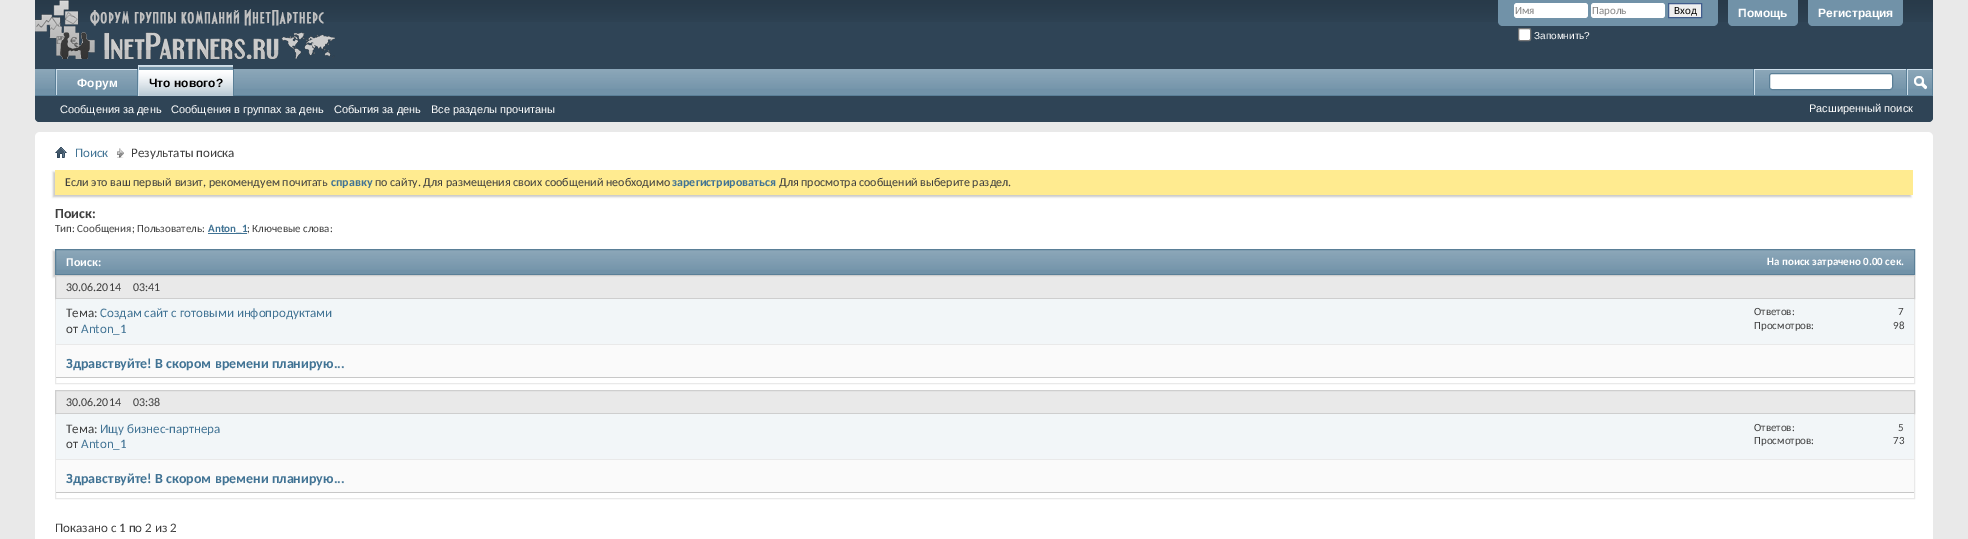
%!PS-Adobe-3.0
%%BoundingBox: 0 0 1968 539
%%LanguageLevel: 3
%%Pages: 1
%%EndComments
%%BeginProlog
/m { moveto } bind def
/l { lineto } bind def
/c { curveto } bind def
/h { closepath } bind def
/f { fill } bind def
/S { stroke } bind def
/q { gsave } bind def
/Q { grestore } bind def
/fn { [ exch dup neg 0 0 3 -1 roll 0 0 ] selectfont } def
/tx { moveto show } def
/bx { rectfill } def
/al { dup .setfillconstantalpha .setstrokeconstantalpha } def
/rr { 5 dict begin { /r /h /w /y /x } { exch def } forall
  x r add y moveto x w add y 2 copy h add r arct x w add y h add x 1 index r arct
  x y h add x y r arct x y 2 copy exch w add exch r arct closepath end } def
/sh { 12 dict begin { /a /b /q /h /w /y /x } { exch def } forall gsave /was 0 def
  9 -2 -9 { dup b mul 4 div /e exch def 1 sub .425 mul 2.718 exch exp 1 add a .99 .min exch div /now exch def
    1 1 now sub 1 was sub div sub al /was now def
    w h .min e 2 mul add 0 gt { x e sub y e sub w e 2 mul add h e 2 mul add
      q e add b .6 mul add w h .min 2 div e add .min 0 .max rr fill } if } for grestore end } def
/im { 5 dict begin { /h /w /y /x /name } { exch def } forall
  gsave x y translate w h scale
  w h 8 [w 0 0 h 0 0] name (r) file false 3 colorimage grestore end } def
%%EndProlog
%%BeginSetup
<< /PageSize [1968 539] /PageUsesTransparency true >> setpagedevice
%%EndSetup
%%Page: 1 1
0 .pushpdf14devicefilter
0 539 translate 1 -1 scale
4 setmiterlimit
0.914 setgray
0 0 1968 539 bx
0.184 0.267 0.337 setrgbcolor
35 0 m 1933 0 l 1933 117 l 1933 120 1931 122 1928 122 c 40 122 l 37 122 35 120 35 117 c h f
(image0.raw) 35 0 1898 22 im
(image1.raw) 35 0 300 59 im
0.443 0.573 0.659 setrgbcolor
1498 0 m 1718 0 l 1718 21 l 1718 24 1716 26 1713 26 c 1503 26 l 1500 26 1498 24 1498 21 c h f
1 setgray
1514 3 74 15 3 rr f
/Carlito-Regular 11 fn
0.51 setgray
(Имя) 1515 14 tx
1 setgray
1591 3 74 15 3 rr f
0.51 setgray
(Пароль) 1592 14 tx
0.937 setgray
1668.5 3.5 m 1701.5 3.5 l 1701.5 17.5 l 1668.5 17.5 l h q f Q
0.255 0.365 0.553 setrgbcolor
S
0 setgray
(Вход) 1674 14 tx
1 setgray
1518.5 28.5 12 12 1.5 rr q f Q
0.463 setgray
S
/LiberationSans-Regular 10 fn
1 setgray
(Запомнить?) 1534 39 tx
0.443 0.573 0.659 setrgbcolor
1728 0 m 1798 0 l 1798 21 l 1798 24 1796 26 1793 26 c 1733 26 l 1730 26 1728 24 1728 21 c h f
/LiberationSans-Bold 12 fn
1 setgray
(Помощь) 1738 17 tx
0.443 0.573 0.659 setrgbcolor
1808 0 m 1903 0 l 1903 21 l 1903 24 1901 26 1898 26 c 1813 26 l 1810 26 1808 24 1808 21 c h f
1 setgray
(Регистрация) 1818 17 tx
0.184 0.267 0.337 setrgbcolor
35 69 m 1933 69 l 1933 117 l 1933 120 1931 122 1928 122 c 40 122 l 37 122 35 120 35 117 c h f
0.443 0.573 0.659 setrgbcolor
35 69 1897 26 bx
(image2.raw) 35 69 1897 20 im
0.353 0.498 0.592 setrgbcolor
233 69 1 26 bx
137 69 1 27 bx
55 69 1 27 bx
0.808 0.875 0.922 setrgbcolor
56 69 81 1 bx
56 69 1 27 bx
0.353 0.498 0.592 setrgbcolor
35 95 1898 1 bx
0.443 0.573 0.659 setrgbcolor
139 66 94 30 bx
(image3.raw) 139 66 94 30 im
0.808 0.875 0.922 setrgbcolor
138 65 95 1 bx
138 65 1 31 bx
0 setgray
(Что нового?) 149 87 tx
/LiberationSans-Regular 11 fn
1 setgray
(Сообщения за день) 60 113 tx
(Сообщения в группах за день) 171 113 tx
(События за день) 334 113 tx
(Все разделы прочитаны) 431 113 tx
0.443 0.573 0.659 setrgbcolor
57 70 80 19 bx
(image4.raw) 57 70 80 20 im
/LiberationSans-Bold 12 fn
1 setgray
(Форум) 77 87 tx
0.353 0.498 0.592 setrgbcolor
1753 69 1 26 bx
0.808 0.875 0.922 setrgbcolor
1754 69 152 1 bx
1754 69 1 26 bx
1 setgray
1769.5 73.5 123 16 2.5 rr q f Q
0.353 0.498 0.592 setrgbcolor
S
1932 69 1 26 bx
1906 69 1 26 bx
0.808 0.875 0.922 setrgbcolor
1907 69 25 1 bx
1907 69 1 26 bx
(image5.raw) 1914 76 13 14 im
/LiberationSans-Regular 11 fn
1 setgray
(Расширенный поиск) 1809 112 tx
35 132 1898 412 5 rr f
(image6.raw) 55 147 12 11 im
(image7.raw) 117 148 7 10 im
/Carlito-Regular 13 fn
0.255 0.451 0.58 setrgbcolor
(Поиск) 75 157 tx
0.243 setgray
(Результаты поиска) 131 157 tx
0.784 setgray
53 172 1858 25 0 1 1 sh
1 0.922 0.565 setrgbcolor
55 170 1858 25 bx
/Carlito-Regular 12 fn
0.243 setgray
(Если это ваш первый визит, рекомендуем почитать) 65 186 tx
/Carlito-Bold 12 fn
0.255 0.451 0.58 setrgbcolor
(справку) 331 186 tx
/Carlito-Regular 12 fn
0.243 setgray
(по сайту. Для размещения своих сообщений необходимо) 375 186 tx
/Carlito-Bold 12 fn
0.255 0.451 0.58 setrgbcolor
(зарегистрироваться) 672 186 tx
/Carlito-Regular 12 fn
0.243 setgray
(Для просмотра сообщений выберите раздел.) 779 186 tx
/Carlito-Bold 14 fn
(Поиск:) 55 218 tx
/Carlito-Regular 11 fn
(Тип: Сообщения; Пользователь:) 55 232 tx
0.255 0.451 0.58 setrgbcolor
208 233 39 1 bx
/Carlito-Bold 11 fn
(Anton_1) 208 232 tx
/Carlito-Regular 11 fn
0.243 setgray
(; Ключевые слова:) 247 232 tx
0.784 setgray
53 251 1860 26 0 1 1 sh
0.443 0.573 0.659 setrgbcolor
56 250 1858 24 bx
(image8.raw) 56 250 1858 20 im
0.353 0.498 0.592 setrgbcolor
55.5 249.5 1859 25 rectstroke
/Carlito-Bold 12 fn
1 setgray
(Поиск:) 66 266 tx
/Carlito-Bold 11 fn
(На поиск затрачено 0.00 сек.) 1767 265 tx
0.914 setgray
55.5 275.5 1859 108 rectstroke
55.5 275.5 m 1914.5 275.5 l 1914.5 298.5 l 55.5 298.5 l h q f Q
0.808 setgray
S
/Carlito-Regular 12 fn
0.243 setgray
(30.06.2014) 66 291 tx
(03:41) 133 291 tx
0.949 0.965 0.973 setrgbcolor
56 299 1858 45 bx
0.914 setgray
56 344 1858 1 bx
/Carlito-Regular 13 fn
0.243 setgray
(Тема:) 66 317 tx
0.255 0.451 0.58 setrgbcolor
(Создам сайт с готовыми инфопродуктами) 100 317 tx
0.243 setgray
(от) 66 333 tx
0.255 0.451 0.58 setrgbcolor
(Anton_1) 81 333 tx
/Carlito-Regular 11 fn
0.243 setgray
(Ответов:) 1754 315 tx
(7) 1898 315 tx
(Просмотров:) 1754 329 tx
(98) 1893 329 tx
0.98 setgray
56 345 1858 32 bx
0.784 setgray
56 377 1858 1 bx
/Carlito-Bold 14 fn
0.255 0.451 0.58 setrgbcolor
(Здравствуйте! В скором времени планирую...) 66 368 tx
0.914 setgray
55.5 390.5 1859 108 rectstroke
55.5 390.5 m 1914.5 390.5 l 1914.5 413.5 l 55.5 413.5 l h q f Q
0.808 setgray
S
/Carlito-Regular 12 fn
0.243 setgray
(30.06.2014) 66 406 tx
(03:38) 133 406 tx
0.949 0.965 0.973 setrgbcolor
56 414 1858 45 bx
0.914 setgray
56 459 1858 1 bx
/Carlito-Regular 13 fn
0.243 setgray
(Тема:) 66 433 tx
0.255 0.451 0.58 setrgbcolor
(Ищу бизнес-партнера) 100 433 tx
0.243 setgray
(от) 66 448 tx
0.255 0.451 0.58 setrgbcolor
(Anton_1) 81 448 tx
/Carlito-Regular 11 fn
0.243 setgray
(Ответов:) 1754 431 tx
(5) 1898 431 tx
(Просмотров:) 1754 444 tx
(73) 1893 444 tx
0.98 setgray
56 460 1858 32 bx
0.784 setgray
56 492 1858 1 bx
/Carlito-Bold 14 fn
0.255 0.451 0.58 setrgbcolor
(Здравствуйте! В скором времени планирую...) 66 483 tx
/Carlito-Regular 13 fn
0.243 setgray
(Показано с 1 по 2 из 2) 55 532 tx
.poppdf14devicefilter showpage
%%EOF
